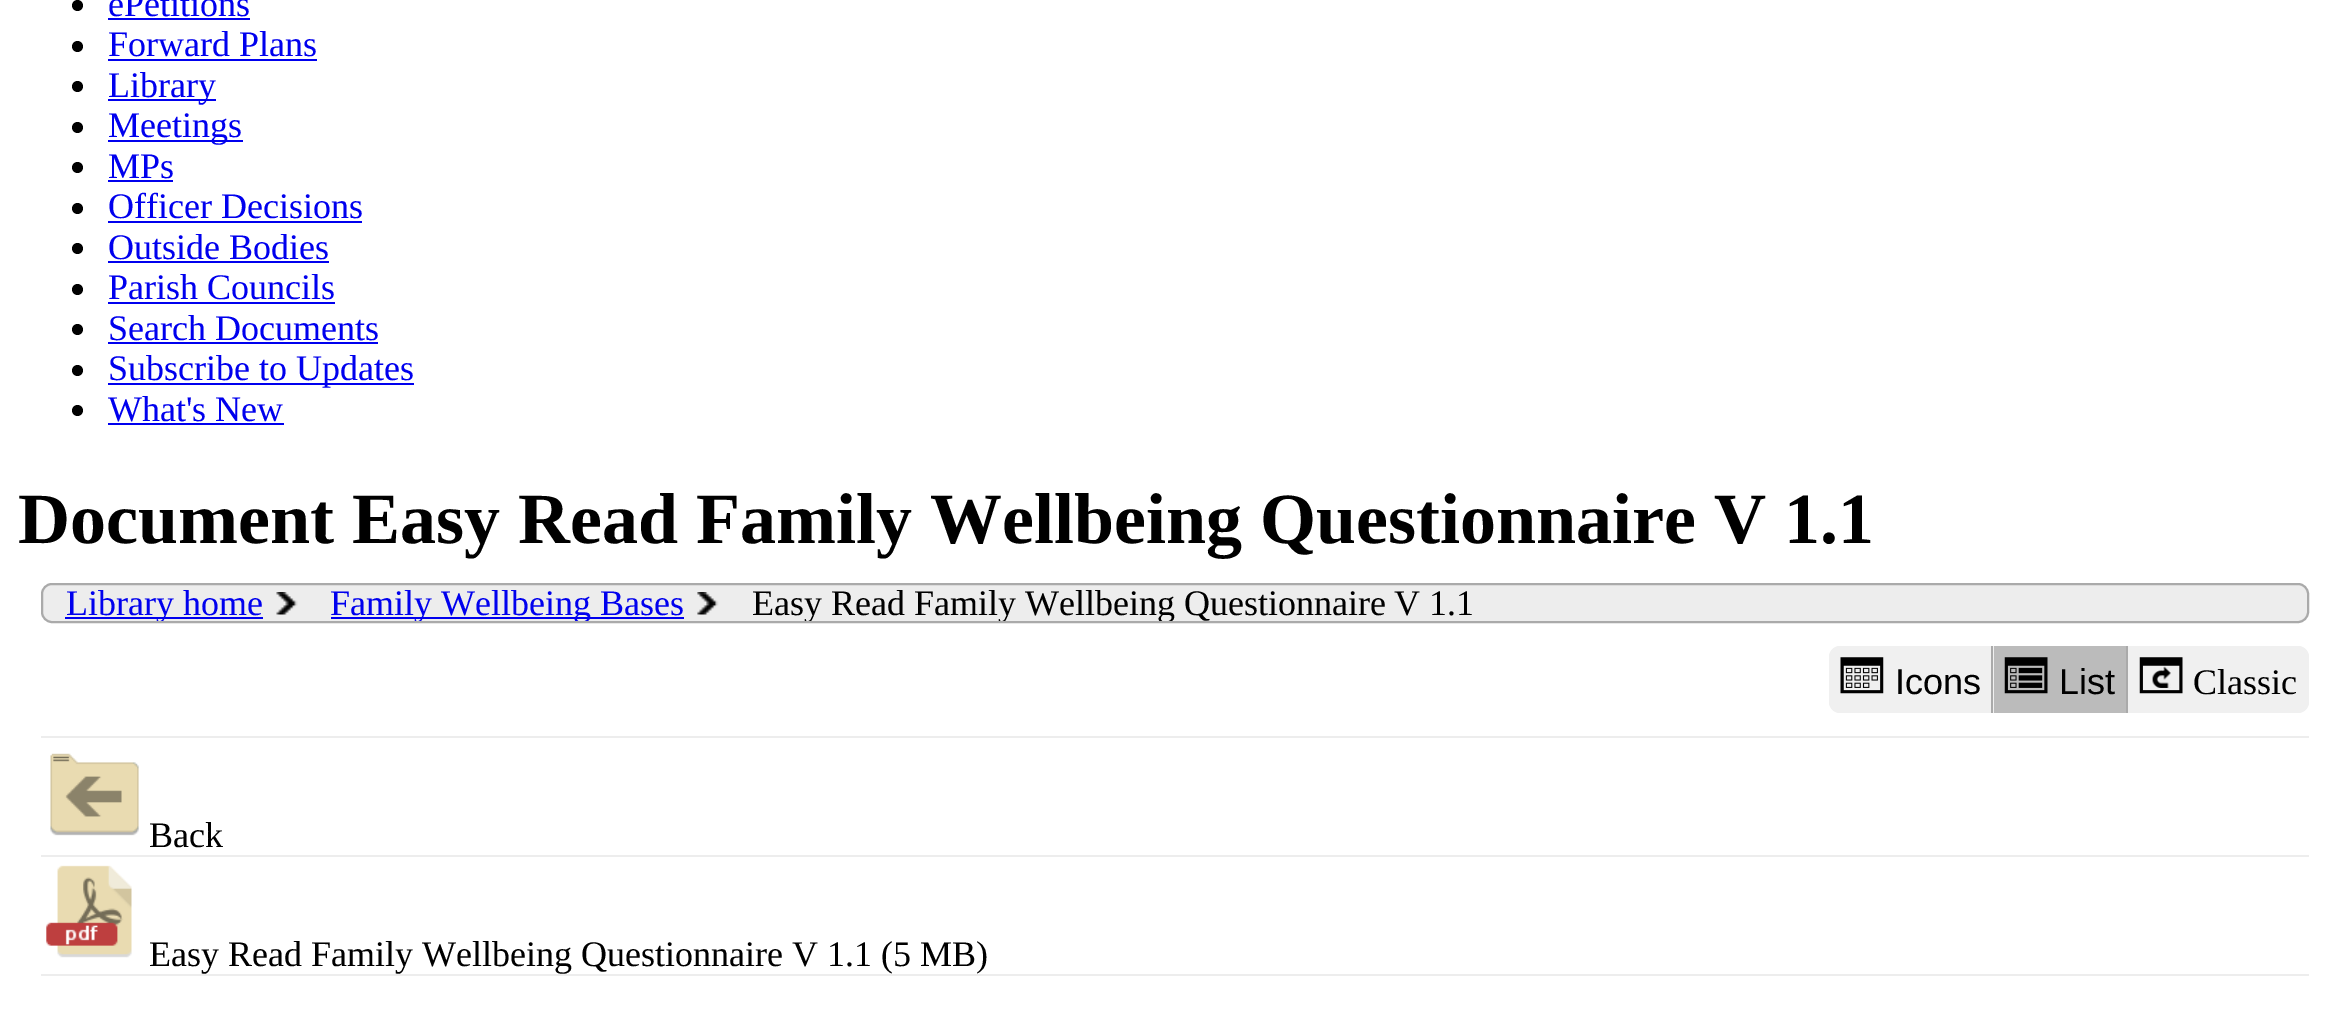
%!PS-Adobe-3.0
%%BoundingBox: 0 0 2325 1034
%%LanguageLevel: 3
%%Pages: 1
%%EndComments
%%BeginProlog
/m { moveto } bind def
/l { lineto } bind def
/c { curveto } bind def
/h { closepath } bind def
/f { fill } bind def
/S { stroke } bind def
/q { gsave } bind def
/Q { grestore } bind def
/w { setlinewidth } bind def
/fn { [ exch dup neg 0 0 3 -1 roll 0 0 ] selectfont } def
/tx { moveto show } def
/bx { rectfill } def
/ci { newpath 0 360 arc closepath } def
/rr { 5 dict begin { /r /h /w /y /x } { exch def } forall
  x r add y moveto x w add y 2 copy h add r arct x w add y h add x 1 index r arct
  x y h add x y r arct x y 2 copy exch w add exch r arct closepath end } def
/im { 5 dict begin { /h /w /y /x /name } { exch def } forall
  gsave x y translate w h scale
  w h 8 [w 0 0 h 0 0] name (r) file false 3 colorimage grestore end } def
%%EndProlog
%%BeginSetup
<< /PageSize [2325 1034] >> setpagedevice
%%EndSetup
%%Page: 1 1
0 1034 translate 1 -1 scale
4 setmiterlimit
1 setgray
0 0 2325 1034 bx
0 setgray
77.5 5.5 5.5 ci f
/LiberationSerif-Regular 36 fn
0 0 0.933 setrgbcolor
(ePetitions) 108 16 tx
108 18 142 2 bx
0 setgray
77.5 46.5 5.5 ci f
0 0 0.933 setrgbcolor
(Forward Plans) 108 56 tx
108 59 209 2 bx
0 setgray
77.5 86.5 5.5 ci f
0 0 0.933 setrgbcolor
108 99 108 2 bx
(Library) 108 97 tx
0 setgray
77.5 127.5 5.5 ci f
0 0 0.933 setrgbcolor
108 140 135 2 bx
(Meetings) 108 137 tx
0 setgray
77.5 167.5 5.5 ci f
0 0 0.933 setrgbcolor
(MPs) 108 178 tx
108 180 65 2 bx
0 setgray
77.5 208.5 5.5 ci f
0 0 0.933 setrgbcolor
(Officer Decisions) 108 218 tx
108 221 254 2 bx
0 setgray
77.5 248.5 5.5 ci f
0 0 0.933 setrgbcolor
(Outside Bodies) 108 259 tx
108 261 221 2 bx
0 setgray
77.5 289.5 5.5 ci f
0 0 0.933 setrgbcolor
(Parish Councils) 108 299 tx
108 302 227 2 bx
0 setgray
77.5 329.5 5.5 ci f
0 0 0.933 setrgbcolor
(Search Documents) 108 340 tx
108 342 270 2 bx
0 setgray
77.5 370.5 5.5 ci f
0 0 0.933 setrgbcolor
108 383 306 2 bx
(Subscribe to Updates) 108 380 tx
0 setgray
77.5 410.5 5.5 ci f
0 0 0.933 setrgbcolor
(What's New) 108 421 tx
108 423 176 2 bx
/LiberationSerif-Bold 72 fn
0 setgray
(Document Easy Read Family Wellbeing Questionnaire V 1.1) 18 543 tx
0.929 setgray
42 584 2266 38 10 rr q f Q
0.667 setgray
2 w
S
0 0 0.933 setrgbcolor
65 617 198 2 bx
q
43 585 2263 36 9 rr clip newpath
/LiberationSerif-Regular 36 fn
(Library home) 66 615 tx
Q
(image0.raw) 276 592 22 23 im
331 617 353 2 bx
q
43 585 2263 36 9 rr clip newpath
/LiberationSerif-Regular 36 fn
(Family Wellbeing Bases) 330 615 tx
Q
(image1.raw) 697 592 22 23 im
q
43 585 2263 36 9 rr clip newpath
/LiberationSerif-Regular 36 fn
0 setgray
(Easy Read Family Wellbeing Questionnaire) 752 615 tx
Q
/LiberationSerif-Regular 36 fn
0 setgray
(V 1.1) 1394 615 tx
0.941 setgray
1840 646 m 1994 646 l 1994 713 l 1840 713 l 1834 713 1829 708 1829 702 c 1829 657 l 1829 651 1834 646 1840 646 c h f
0.667 setgray
1991 646 2 67 bx
(image2.raw) 1840 657 44 37 im
/LiberationSans-Regular 36 fn
0 setgray
(Icons) 1895 694 tx
0.733 setgray
1994 646 132 67 bx
(image3.raw) 2004 657 44 37 im
0 setgray
(List) 2059 694 tx
0.941 setgray
2126 646 m 2298 646 l 2304 646 2309 651 2309 657 c 2309 702 l 2309 708 2304 713 2298 713 c 2126 713 l h f
0.667 setgray
2126 646 2 67 bx
(image4.raw) 2139 657 44 37 im
/LiberationSerif-Regular 36 fn
0 setgray
(Classic) 2193 694 tx
0.929 setgray
41 736 2268 2 bx
41 855 2268 2 bx
(image5.raw) 50 753 89 83 im
0 setgray
(Back) 149 847 tx
0.929 setgray
41 974 2268 2 bx
(image6.raw) 46 865 86 93 im
0 setgray
(Easy Read Family Wellbeing Questionnaire V 1.1 \(5 MB\)) 149 966 tx
showpage
%%EOF
